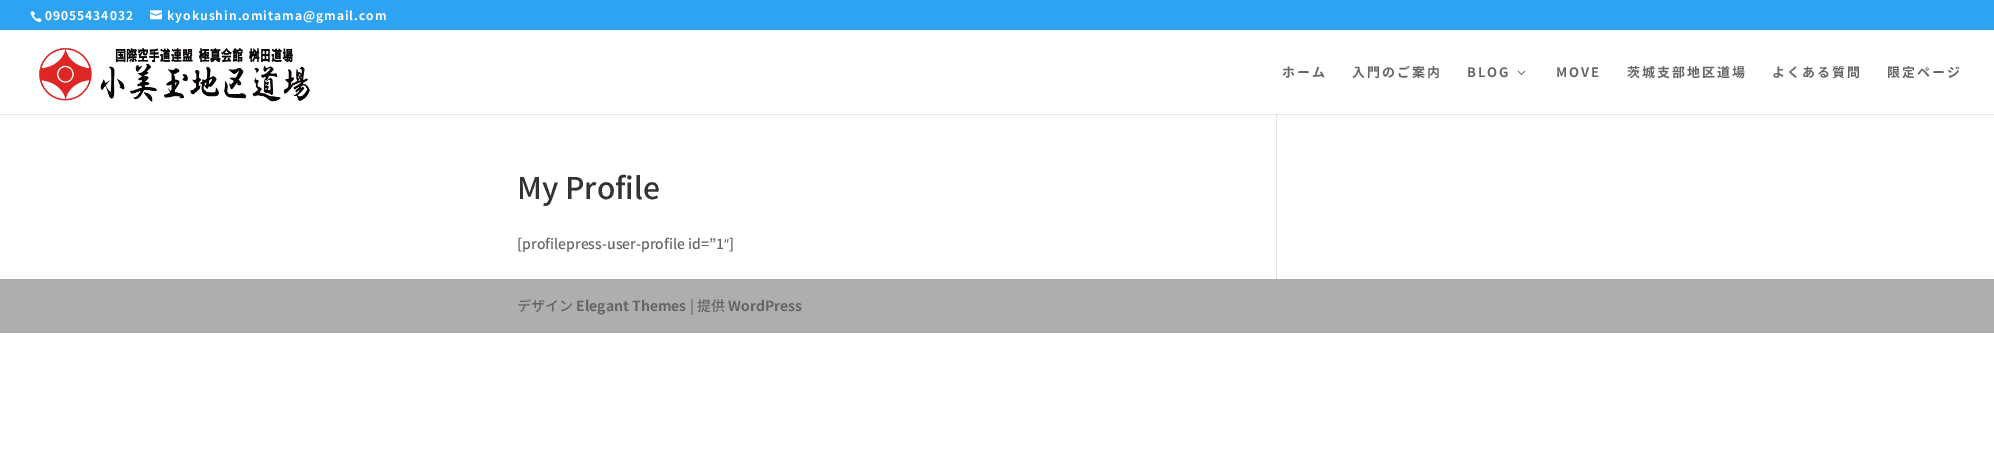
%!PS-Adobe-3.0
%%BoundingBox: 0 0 1994 476
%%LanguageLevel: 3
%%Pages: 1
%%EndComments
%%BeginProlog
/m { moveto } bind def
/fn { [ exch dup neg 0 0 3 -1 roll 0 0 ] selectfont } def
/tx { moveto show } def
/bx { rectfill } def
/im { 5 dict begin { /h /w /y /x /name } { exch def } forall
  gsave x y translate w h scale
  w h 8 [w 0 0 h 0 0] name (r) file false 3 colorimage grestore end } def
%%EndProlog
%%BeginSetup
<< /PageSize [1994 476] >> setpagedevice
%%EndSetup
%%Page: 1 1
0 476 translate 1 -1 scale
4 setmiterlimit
1 setgray
0 0 1994 476 bx
0.902 setgray
0 114 1994 1 bx
0.18 0.639 0.949 setrgbcolor
0 0 1994 30 bx
(image0.raw) 30 11 12 12 im
/NotoSansJP-Bold 12 fn
1 setgray
45 20 m 1 0 (09055434032) ashow
(image1.raw) 150 10 12 10 im
167 20 m 1 0 (kyokushin.omitama@gmail.com) ashow
(image2.raw) 39 47 271 55 im
/NotoSansJP-Bold 13 fn
0.4 setgray
1282 77 m 2 0 (ホーム) ashow
1352 77 m 2 0 (入門のご案内) ashow
1467 77 m 2 0 (BLOG) ashow
(image3.raw) 1517 70 9 5 im
1556 77 m 2 0 (MOVE) ashow
1627 77 m 2 0 (茨城支部地区道場) ashow
1772 77 m 2 0 (よくある質問) ashow
1887 77 m 2 0 (限定ページ) ashow
/NotoSansJP-Medium 30 fn
0.2 setgray
(My Profile) 517 199 tx
/NotoSansJP-Medium 14 fn
0.4 setgray
([profilepress-user-profile id=”1) 517 249 tx
/LiberationSans-Regular 14 fn
(″) 724 249 tx
/NotoSansJP-Medium 14 fn
(]) 729 249 tx
0.886 setgray
1276 114 1 165 bx
0.796 setgray
1276 114 1 1 bx
0.682 setgray
0 279 1994 54 bx
0.4 setgray
(デザイン) 517 311 tx
/NotoSansJP-Bold 14 fn
(Elegant Themes) 576 311 tx
/NotoSansJP-Medium 14 fn
(| 提供) 690 311 tx
/NotoSansJP-Bold 14 fn
(WordPress) 728 311 tx
showpage
%%EOF
